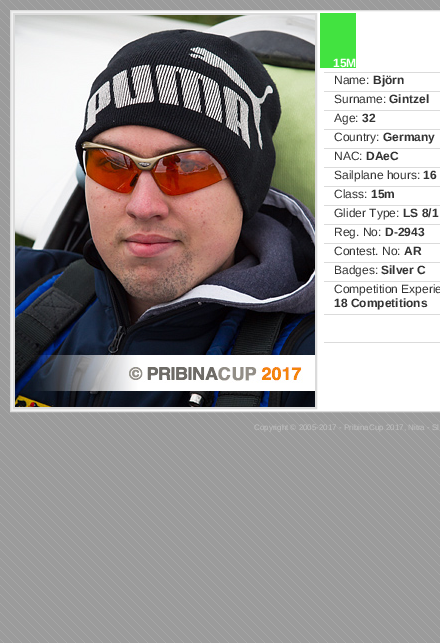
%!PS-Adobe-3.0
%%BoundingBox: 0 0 440 643
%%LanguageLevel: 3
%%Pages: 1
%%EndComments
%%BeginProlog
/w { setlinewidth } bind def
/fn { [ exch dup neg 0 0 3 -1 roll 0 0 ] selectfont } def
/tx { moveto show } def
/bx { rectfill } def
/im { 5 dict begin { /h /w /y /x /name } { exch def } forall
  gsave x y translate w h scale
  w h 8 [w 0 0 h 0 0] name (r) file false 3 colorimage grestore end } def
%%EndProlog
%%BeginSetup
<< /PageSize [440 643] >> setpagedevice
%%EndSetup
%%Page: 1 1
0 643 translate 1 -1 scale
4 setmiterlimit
1 setgray
0 0 440 643 bx
(image0.raw) 0 0 440 643 im
(image1.raw) 11 11 429 400 im
0.859 setgray
10.5 10.5 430 401 rectstroke
2 w
14 14 302 394 rectstroke
(image2.raw) 15 15 300 392 im
0.259 0.89 0.251 setrgbcolor
320 13 36 55 bx
/LiberationSans-Bold 12 fn
1 setgray
(15M) 333 67 tx
0.859 setgray
324 72 116 1 bx
/LiberationSans-Regular 12 fn
0.2 setgray
(Name:) 334 84 tx
/LiberationSans-Bold 12 fn
(Björn) 373 84 tx
0.859 setgray
324 91 116 1 bx
/LiberationSans-Regular 12 fn
0.2 setgray
(Surname:) 334 103 tx
/LiberationSans-Bold 12 fn
(Gintzel) 389 103 tx
0.859 setgray
324 110 116 1 bx
/LiberationSans-Regular 12 fn
0.2 setgray
(Age:) 334 122 tx
/LiberationSans-Bold 12 fn
(32) 362 122 tx
0.859 setgray
324 129 116 1 bx
/LiberationSans-Regular 12 fn
0.2 setgray
(Country:) 334 141 tx
/LiberationSans-Bold 12 fn
(Germany) 383 141 tx
0.859 setgray
324 148 116 1 bx
/LiberationSans-Regular 12 fn
0.2 setgray
(NAC:) 334 160 tx
/LiberationSans-Bold 12 fn
(DAeC) 366 160 tx
0.859 setgray
324 167 116 1 bx
/LiberationSans-Regular 12 fn
0.2 setgray
(Sailplane hours:) 334 179 tx
/LiberationSans-Bold 12 fn
(16) 423 179 tx
0.859 setgray
324 186 116 1 bx
/LiberationSans-Regular 12 fn
0.2 setgray
(Class:) 334 198 tx
/LiberationSans-Bold 12 fn
(15m) 371 198 tx
0.859 setgray
324 205 116 1 bx
/LiberationSans-Regular 12 fn
0.2 setgray
(Glider Type:) 334 217 tx
/LiberationSans-Bold 12 fn
(LS 8/1) 403 217 tx
0.859 setgray
324 224 116 1 bx
/LiberationSans-Regular 12 fn
0.2 setgray
(Reg. No:) 334 236 tx
/LiberationSans-Bold 12 fn
(D-2943) 385 236 tx
0.859 setgray
324 243 116 1 bx
/LiberationSans-Regular 12 fn
0.2 setgray
(Contest. No:) 334 255 tx
/LiberationSans-Bold 12 fn
(AR) 404 255 tx
0.859 setgray
324 262 116 1 bx
/LiberationSans-Regular 12 fn
0.2 setgray
(Badges:) 334 274 tx
/LiberationSans-Bold 12 fn
(Silver C) 381 274 tx
0.859 setgray
324 281 116 1 bx
/LiberationSans-Regular 12 fn
0.2 setgray
(Competition Experie) 334 293 tx
/LiberationSans-Bold 12 fn
(18 Competitions) 334 307 tx
0.859 setgray
324 314 116 1 bx
324 342 116 1 bx
/LiberationSans-Regular 8 fn
0.757 setgray
(Copyright © 2005-2017 - PribinaCup 2017, Nitra - Sl) 254 430 tx
showpage
%%EOF
